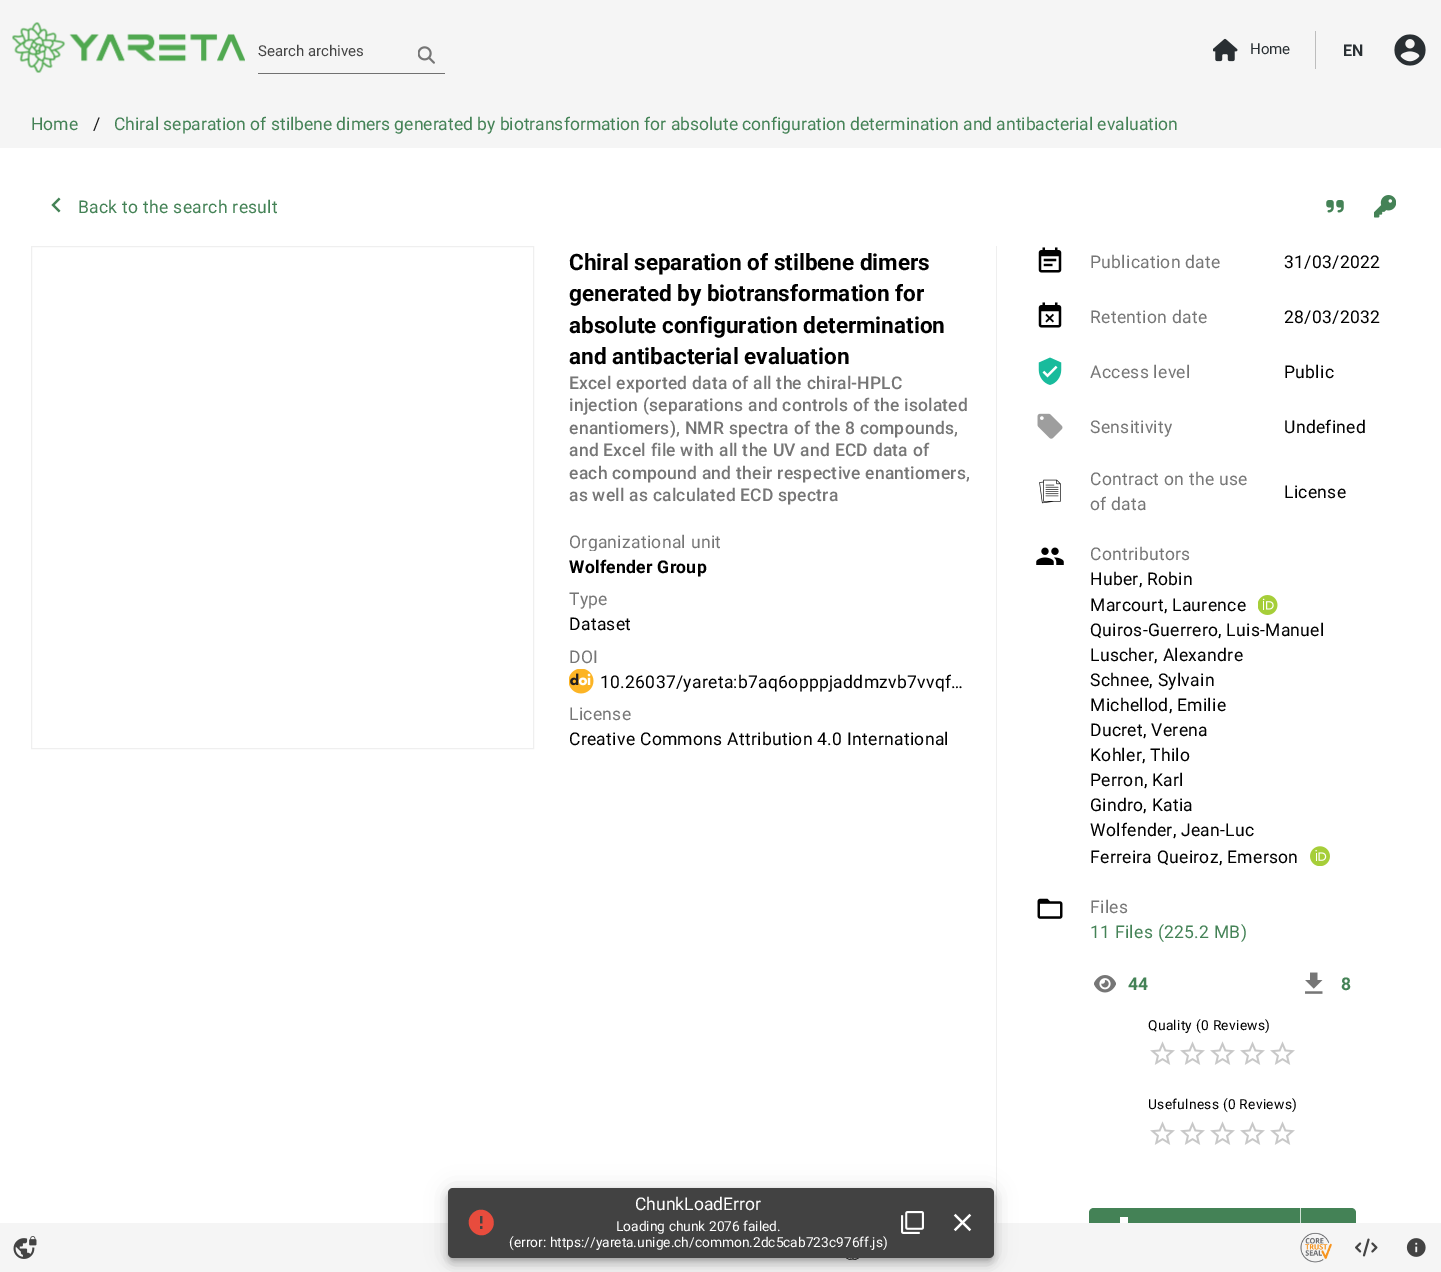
%!PS-Adobe-3.0
%%BoundingBox: 0 0 1441 1272
%%LanguageLevel: 3
%%Pages: 1
%%EndComments
%%BeginProlog
/m { moveto } bind def
/l { lineto } bind def
/c { curveto } bind def
/h { closepath } bind def
/f { fill } bind def
/q { gsave } bind def
/Q { grestore } bind def
/fn { [ exch dup neg 0 0 3 -1 roll 0 0 ] selectfont } def
/tx { moveto show } def
/bx { rectfill } def
/al { dup .setfillconstantalpha .setstrokeconstantalpha } def
/rr { 5 dict begin { /r /h /w /y /x } { exch def } forall
  x r add y moveto x w add y 2 copy h add r arct x w add y h add x 1 index r arct
  x y h add x y r arct x y 2 copy exch w add exch r arct closepath end } def
/sh { 12 dict begin { /a /b /q /h /w /y /x } { exch def } forall gsave /was 0 def
  9 -2 -9 { dup b mul 4 div /e exch def 1 sub .425 mul 2.718 exch exp 1 add a .99 .min exch div /now exch def
    1 1 now sub 1 was sub div sub al /was now def
    w h .min e 2 mul add 0 gt { x e sub y e sub w e 2 mul add h e 2 mul add
      q e add b .6 mul add w h .min 2 div e add .min 0 .max rr fill } if } for grestore end } def
/im { 5 dict begin { /h /w /y /x /name } { exch def } forall
  gsave x y translate w h scale
  w h 8 [w 0 0 h 0 0] name (r) file false 3 colorimage grestore end } def
%%EndProlog
%%BeginSetup
<< /PageSize [1441 1272] /PageUsesTransparency true >> setpagedevice
%%EndSetup
%%Page: 1 1
0 .pushpdf14devicefilter
0 1272 translate 1 -1 scale
4 setmiterlimit
1 setgray
0 0 1441 1272 bx
0.961 setgray
0 0 1441 148 bx
(image0.raw) 12 22 233 51 im
/Roboto-Regular 15 fn
0.271 setgray
(Search archives) 258 56 tx
(image1.raw) 418 46 17 18 im
0.443 setgray
258 73 187 1 bx
(image2.raw) 1213 38 25 24 im
0.161 0.184 0.2 setrgbcolor
(Home) 1250 54 tx
0.741 setgray
1315 31 1 38 bx
/Roboto-Bold 16 fn
0.161 0.184 0.2 setrgbcolor
(EN) 1343 56 tx
(image3.raw) 1394 34 32 32 im
/Roboto-Regular 17.5 fn
0.267 0.51 0.337 setrgbcolor
(Home) 31 130 tx
0.106 setgray
(/) 93 130 tx
0.267 0.51 0.337 setrgbcolor
(Chiral separation of stilbene dimers generated by biotransformation for absolute configuration determination and antibacterial evaluation) 114 130 tx
(image4.raw) 51 197 10 16 im
78 213 m 0.3 0 (Back to the search result) ashow
(image5.raw) 1326 200 18 13 im
(image6.raw) 1374 195 22 23 im
0.937 setgray
31.5 246.5 502 502 rectstroke
996 246 1 977 bx
/Roboto-Bold 22.5 fn
0 setgray
(Chiral separation of stilbene dimers) 569 270 tx
(generated by biotransformation for) 569 301 tx
(absolute configuration determination) 569 333 tx
(and antibacterial evaluation) 569 364 tx
/Roboto-Medium 17.5 fn
0.463 setgray
569 389 m 0.22 0 (Excel exported data of all the chiral-HPLC) ashow
569 411 m 0.22 0 (injection \(separations and controls of the isolated) ashow
569 434 m 0.22 0 (enantiomers\), NMR spectra of the 8 compounds,) ashow
569 456 m 0.22 0 (and Excel file with all the UV and ECD data of) ashow
569 479 m 0.22 0 (each compound and their respective enantiomers,) ashow
569 501 m 0.22 0 (as well as calculated ECD spectra) ashow
q
569 531 402 20 rectclip
/Roboto-Regular 17.5 fn
569 548 m 0.3 0 (Organizational unit) ashow
Q
/Roboto-Bold 17.5 fn
0 setgray
569 573 m 0.3 0 (Wolfender Group) ashow
/Roboto-Regular 17.5 fn
0.463 setgray
569 605 m 0.3 0 (Type) ashow
0 setgray
569 630 m 0.3 0 (Dataset) ashow
0.463 setgray
569 663 m 0.3 0 (DOI) ashow
(image7.raw) 569 669 25 25 im
0 setgray
600 688 m 0.3 0 (10.26037/yareta:b7aq6opppjaddmzvb7vvqf…) ashow
0.463 setgray
569 720 m 0.3 0 (License) ashow
0 setgray
569 745 m 0.3 0 (Creative Commons Attribution 4.0 International) ashow
(image8.raw) 1038 247 24 26 im
0.463 setgray
1090 268 m 0.3 0 (Publication date) ashow
0 setgray
1284 268 m 0.3 0 (31/03/2022) ashow
(image9.raw) 1038 302 24 26 im
0.463 setgray
1090 323 m 0.3 0 (Retention date) ashow
0 setgray
1284 323 m 0.3 0 (28/03/2032) ashow
(image10.raw) 1038 357 24 28 im
0.463 setgray
1090 378 m 0.3 0 (Access level) ashow
0 setgray
1284 378 m 0.3 0 (Public) ashow
(image11.raw) 1037 413 26 26 im
0.463 setgray
1090 433 m 0.3 0 (Sensitivity) ashow
0 setgray
1284 433 m 0.3 0 (Undefined) ashow
(image12.raw) 1039 479 22 25 im
0.463 setgray
1090 485 m 0.3 0 (Contract on the use) ashow
1090 510 m 0.3 0 (of data) ashow
0 setgray
1284 498 m 0.3 0 (License) ashow
(image13.raw) 1036 547 28 18 im
0.463 setgray
1090 560 m 0.3 0 (Contributors) ashow
0 setgray
1090 585 m 0.3 0 (Huber, Robin) ashow
1090 611 m 0.3 0 (Marcourt, Laurence) ashow
(image14.raw) 1258 595 20 20 im
1090 636 m 0.3 0 (Quiros-Guerrero, Luis-Manuel) ashow
1090 661 m 0.3 0 (Luscher, Alexandre) ashow
1090 686 m 0.3 0 (Schnee, Sylvain) ashow
1090 711 m 0.3 0 (Michellod, Emilie) ashow
1090 736 m 0.3 0 (Ducret, Verena) ashow
1090 761 m 0.3 0 (Kohler, Thilo) ashow
1090 786 m 0.3 0 (Perron, Karl) ashow
1090 811 m 0.3 0 (Gindro, Katia) ashow
1090 836 m 0.3 0 (Wolfender, Jean-Luc) ashow
1090 863 m 0.3 0 (Ferreira Queiroz, Emerson) ashow
(image15.raw) 1310 846 20 20 im
(image16.raw) 1037 898 26 21 im
0.463 setgray
1090 913 m 0.3 0 (Files) ashow
0.267 0.51 0.337 setrgbcolor
1090 938 m 0.3 0 (11 Files \(225.2 MB\)) ashow
(image17.raw) 1094 975 22 18 im
/Roboto-Bold 17.5 fn
1128 990 m 0.3 0 (44) ashow
(image18.raw) 1305 972 18 22 im
1341 990 m 0.3 0 (8) ashow
/Roboto-Regular 13.75 fn
0 setgray
1148 1030 m 0.3 0 (Quality \(0 Reviews\)) ashow
(image19.raw) 1150 1041 25 24 im
(image19.raw) 1180 1041 25 24 im
(image19.raw) 1210 1041 25 24 im
(image19.raw) 1240 1041 25 24 im
(image19.raw) 1270 1041 25 24 im
1148 1109 m 0.3 0 (Usefulness \(0 Reviews\)) ashow
(image19.raw) 1150 1121 25 24 im
(image19.raw) 1180 1121 25 24 im
(image19.raw) 1210 1121 25 24 im
(image19.raw) 1240 1121 25 24 im
(image19.raw) 1270 1121 25 24 im
0.267 0.51 0.337 setrgbcolor
1094 1208 m 1351 1208 l 1354 1208 1356 1210 1356 1213 c 1356 1223 l 1089 1223 l 1089 1213 l 1089 1210 1091 1208 1094 1208 c h f
1 setgray
1120 1217 8 6 bx
0.816 0.878 0.835 setrgbcolor
1300 1208 1 15 bx
0.961 setgray
0 1223 1441 49 bx
(image20.raw) 13 1236 24 23 im
(image21.raw) 846 1258 13 2 im
(image22.raw) 1300 1232 32 31 im
(image23.raw) 1355 1238 23 19 im
(image24.raw) 1406 1238 20 19 im
0 setgray
448 1189 546 70 5 11 0.12 sh
448 1195 546 70 5 6 0.14 sh
449 1193 544 67 4 3 0.2 sh
0.259 setgray
448 1188 546 70 5 rr f
0.91 0.298 0.239 setrgbcolor
482.5 1223.5 m 482.5 1216 l 480 1216 l 480 1223.5 l h 482.5 1229 m 482.5 1226 l 480 1226 l 480 1229 l h 472.5 1213.5 m 484 1202 501.5 1219.5 490 1231.5 c 478.5 1243 461 1225.5 472.5 1213.5 c h f
/Roboto-Regular 17.5 fn
1 setgray
(ChunkLoadError) 635 1210 tx
/Roboto-Regular 13.75 fn
(Loading chunk 2076 failed.) 616 1231 tx
(\(error: https://yareta.unige.ch/common.2dc5cab723c976ff.js\)) 509 1247 tx
(image25.raw) 901 1211 23 23 im
(image26.raw) 953 1213 19 19 im
.poppdf14devicefilter showpage
%%EOF
